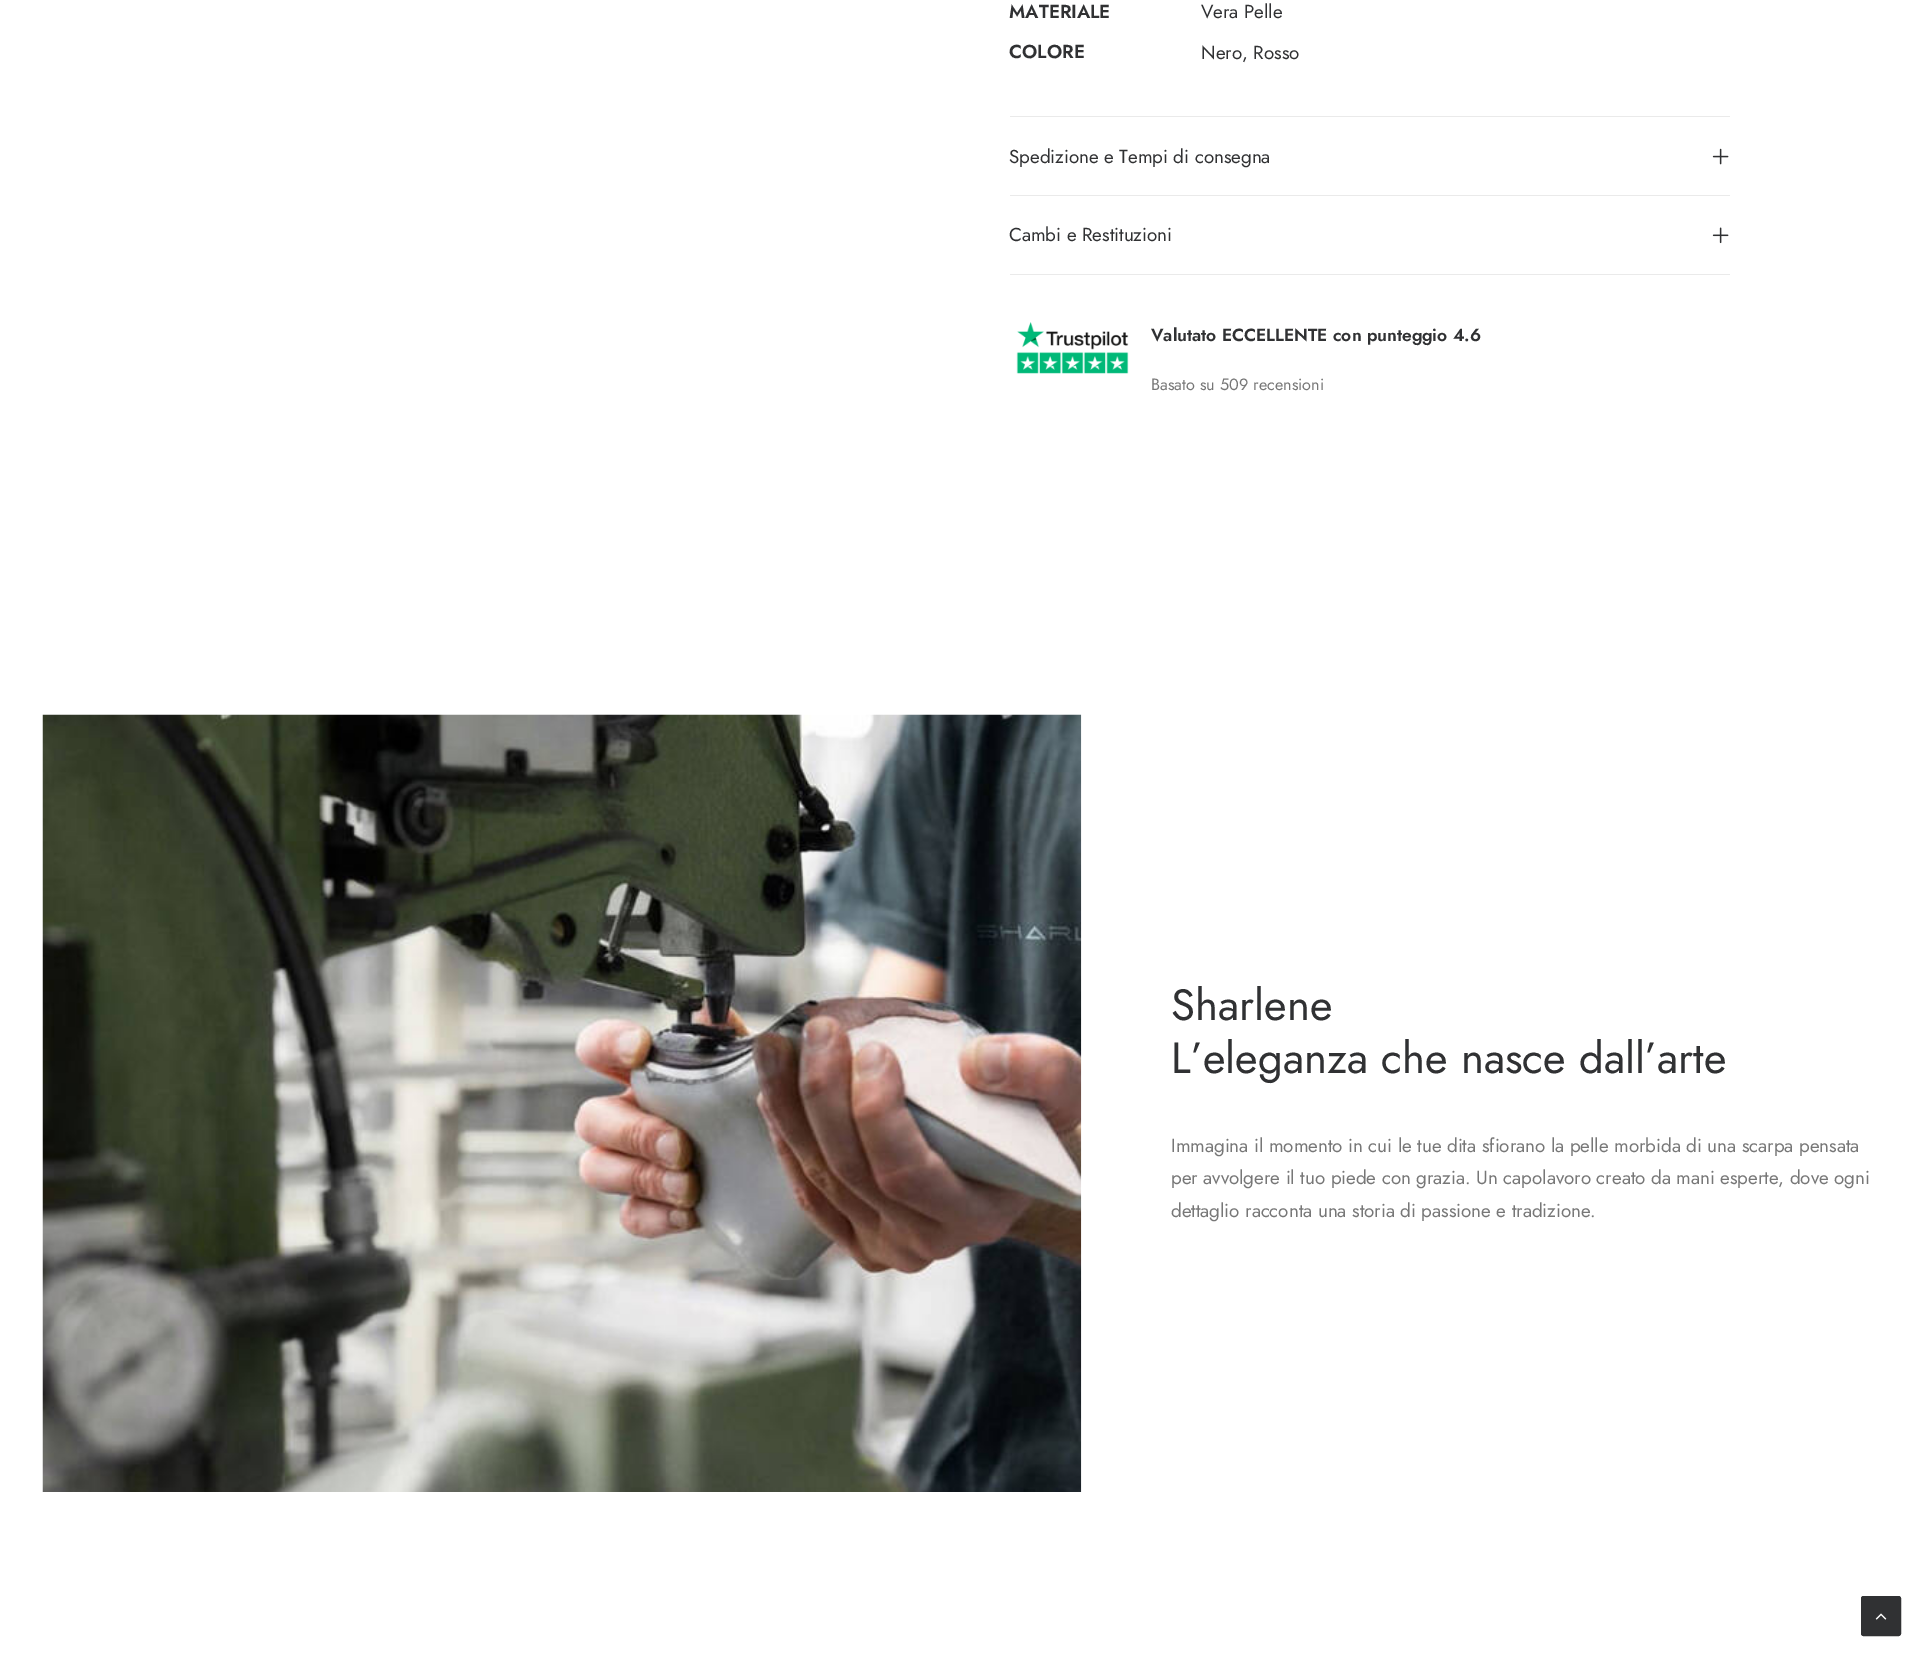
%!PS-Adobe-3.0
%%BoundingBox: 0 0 1928 1663
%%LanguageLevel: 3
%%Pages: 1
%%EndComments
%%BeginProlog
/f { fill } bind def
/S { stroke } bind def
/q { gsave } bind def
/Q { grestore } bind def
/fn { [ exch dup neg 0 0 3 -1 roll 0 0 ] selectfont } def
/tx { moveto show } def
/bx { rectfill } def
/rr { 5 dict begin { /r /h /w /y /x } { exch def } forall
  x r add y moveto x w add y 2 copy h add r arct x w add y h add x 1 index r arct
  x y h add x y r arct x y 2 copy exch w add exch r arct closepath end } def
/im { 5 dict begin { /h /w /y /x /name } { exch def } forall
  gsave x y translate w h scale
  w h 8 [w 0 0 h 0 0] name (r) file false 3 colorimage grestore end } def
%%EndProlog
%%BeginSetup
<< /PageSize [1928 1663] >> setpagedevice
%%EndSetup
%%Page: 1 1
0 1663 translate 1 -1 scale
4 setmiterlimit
1 setgray
0 0 1928 1663 bx
/Jost-SemiBold 18.75 fn
0.188 0.192 0.2 setrgbcolor
(MATERIALE) 1009 18 tx
/Jost-Regular 18.75 fn
(Vera Pelle) 1201 18 tx
/Jost-SemiBold 18.75 fn
(COLORE) 1009 58 tx
/Jost-Regular 18.75 fn
(Nero, Rosso) 1201 59 tx
0.918 setgray
1010 116 720 1 bx
0.188 0.192 0.2 setrgbcolor
(Spedizione e Tempi di consegna) 1009 163 tx
(image0.raw) 1712 148 17 17 im
0.918 setgray
1010 195 720 1 bx
1010 274 720 1 bx
0.188 0.192 0.2 setrgbcolor
(Cambi e Restituzioni) 1009 241 tx
(image1.raw) 1712 227 17 17 im
(image2.raw) 1016 322 113 52 im
/Jost-SemiBold 17.5 fn
(Valutato ECCELLENTE con punteggio 4.6) 1151 341 tx
/Jost-Regular 16.25 fn
0.467 setgray
(Basato su 509 recensioni) 1151 390 tx
(image3.raw) 42 714 1040 778 im
/Jost-Regular 43.75 fn
0.188 0.192 0.2 setrgbcolor
(Sharlene) 1171 1020 tx
(L’eleganza che nasce dall’arte) 1171 1073 tx
/Jost-Regular 18.75 fn
0.467 setgray
(Immagina il momento in cui le tue dita sfiorano la pelle morbida di una scarpa pensata) 1171 1152 tx
(per avvolgere il tuo piede con grazia. Un capolavoro creato da mani esperte, dove ogni) 1171 1184 tx
(dettaglio racconta una storia di passione e tradizione.) 1171 1217 tx
0.188 0.192 0.2 setrgbcolor
1861.5 1596.5 39 39 2 rr q f Q
S
(image4.raw) 1875 1613 12 7 im
showpage
%%EOF
